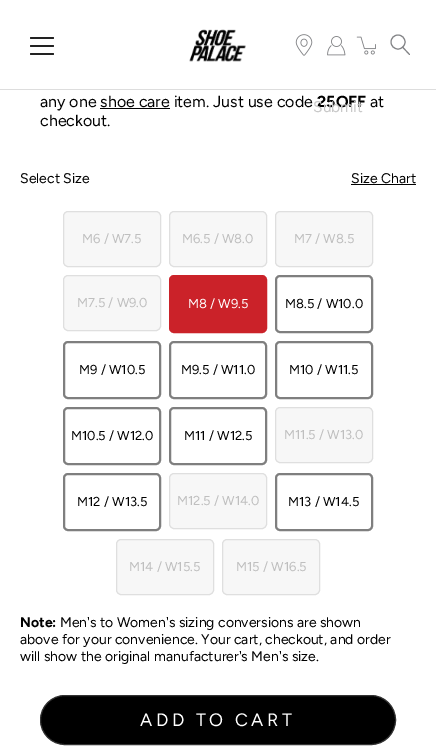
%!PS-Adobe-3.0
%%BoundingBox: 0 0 436 755
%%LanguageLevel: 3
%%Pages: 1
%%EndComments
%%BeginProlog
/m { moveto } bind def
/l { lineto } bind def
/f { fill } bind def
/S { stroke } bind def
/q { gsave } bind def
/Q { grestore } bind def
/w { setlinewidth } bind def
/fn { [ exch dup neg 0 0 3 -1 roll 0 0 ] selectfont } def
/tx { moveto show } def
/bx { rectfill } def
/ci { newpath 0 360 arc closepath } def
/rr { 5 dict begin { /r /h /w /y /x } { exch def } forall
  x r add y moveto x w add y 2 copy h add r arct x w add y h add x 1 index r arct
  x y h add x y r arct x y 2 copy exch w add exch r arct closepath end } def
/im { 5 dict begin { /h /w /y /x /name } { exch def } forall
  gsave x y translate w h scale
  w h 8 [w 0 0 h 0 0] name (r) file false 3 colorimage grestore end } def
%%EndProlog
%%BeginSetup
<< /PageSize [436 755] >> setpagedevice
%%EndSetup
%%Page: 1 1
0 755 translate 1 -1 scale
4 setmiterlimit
1 setgray
0 0 436 755 bx
/Figtree-Regular 16 fn
0 setgray
(any one shoe care item. Just use code) 40 107 tx
/Figtree-Bold 16 fn
(25OFF) 317 107 tx
/Figtree-Regular 16 fn
(at) 370 107 tx
100 108 70 1 bx
(checkout.) 40 126 tx
/Figtree-Regular 14 fn
(Select Size) 20 183 tx
(Size Chart) 351 183 tx
351 184 65 1 bx
0.969 setgray
63.5 211.5 97 55 4.5 rr q f Q
0.875 setgray
S
/Figtree-Regular 13 fn
0.749 setgray
(M6 / W7.5) 82 243 tx
0.969 setgray
169.5 211.5 97 55 4.5 rr q f Q
0.875 setgray
S
0.749 setgray
(M6.5 / W8.0) 182 243 tx
0.969 setgray
275.5 211.5 97 55 4.5 rr q f Q
0.875 setgray
S
0.749 setgray
(M7 / W8.5) 294 243 tx
0.969 setgray
63.5 275.5 97 55 4.5 rr q f Q
0.875 setgray
S
0.749 setgray
(M7.5 / W9.0) 77 307 tx
0.796 0.133 0.161 setrgbcolor
170 276 96 56 4 rr q f Q
2 w
S
1 setgray
(M8 / W9.5) 188 308 tx
0.498 setgray
276 276 96 56 4 rr S
0 setgray
(M8.5 / W10.0) 285 308 tx
0.498 setgray
64 342 96 56 4 rr S
0 setgray
(M9 / W10.5) 79 374 tx
0.498 setgray
170 342 96 56 4 rr S
0 setgray
(M9.5 / W11.0) 181 374 tx
0.498 setgray
276 342 96 56 4 rr S
0 setgray
(M10 / W11.5) 289 374 tx
0.498 setgray
64 408 96 56 4 rr S
0 setgray
(M10.5 / W12.0) 71 440 tx
0.498 setgray
170 408 96 56 4 rr S
0 setgray
(M11 / W12.5) 184 440 tx
0.969 setgray
275.5 407.5 97 55 4.5 rr q f Q
0.875 setgray
1 w
S
0.749 setgray
(M11.5 / W13.0) 284 439 tx
0.498 setgray
2 w
64 474 96 56 4 rr S
0 setgray
(M12 / W13.5) 77 506 tx
0.969 setgray
169.5 473.5 97 55 4.5 rr q f Q
0.875 setgray
1 w
S
0.749 setgray
(M12.5 / W14.0) 177 505 tx
0.498 setgray
2 w
276 474 96 56 4 rr S
0 setgray
(M13 / W14.5) 288 506 tx
0.969 setgray
116.5 539.5 97 55 4.5 rr q f Q
0.875 setgray
1 w
S
0.749 setgray
(M14 / W15.5) 129 571 tx
0.969 setgray
222.5 539.5 97 55 4.5 rr q f Q
0.875 setgray
S
0.749 setgray
(M15 / W16.5) 236 571 tx
/Figtree-Bold 14 fn
0 setgray
(Note:) 20 627 tx
/Figtree-Regular 14 fn
(Men's to Women's sizing conversions are shown) 60 627 tx
(above for your convenience. Your cart, checkout, and order) 20 644 tx
(will show the original manufacturer's Men's size.) 20 661 tx
40.5 695.5 355 49 24.5 rr q f Q
0.2 setgray
S
/Figtree-Regular 18 fn
1 setgray
140 726 m 3.6 0 (ADD TO CART) ashow
0.867 setgray
0 89 436 1 bx
(image0.raw) 189 29 57 33 im
0.133 setgray
30 45 24 2 1 rr f
30 37 24 2 1 rr f
30 53 24 2 1 rr f
(image1.raw) 295 34 18 22 im
(image2.raw) 327 36 19 20 im
(image3.raw) 356 36 20 19 im
0.506 0.51 0.522 setrgbcolor
398 42 7 ci S
1 setlinecap
1 setlinejoin
402.5 47 m 409.5 54.5 l S
/Figtree-Regular 15.5 fn
0.784 setgray
(Submit) 313 112 tx
showpage
%%EOF
